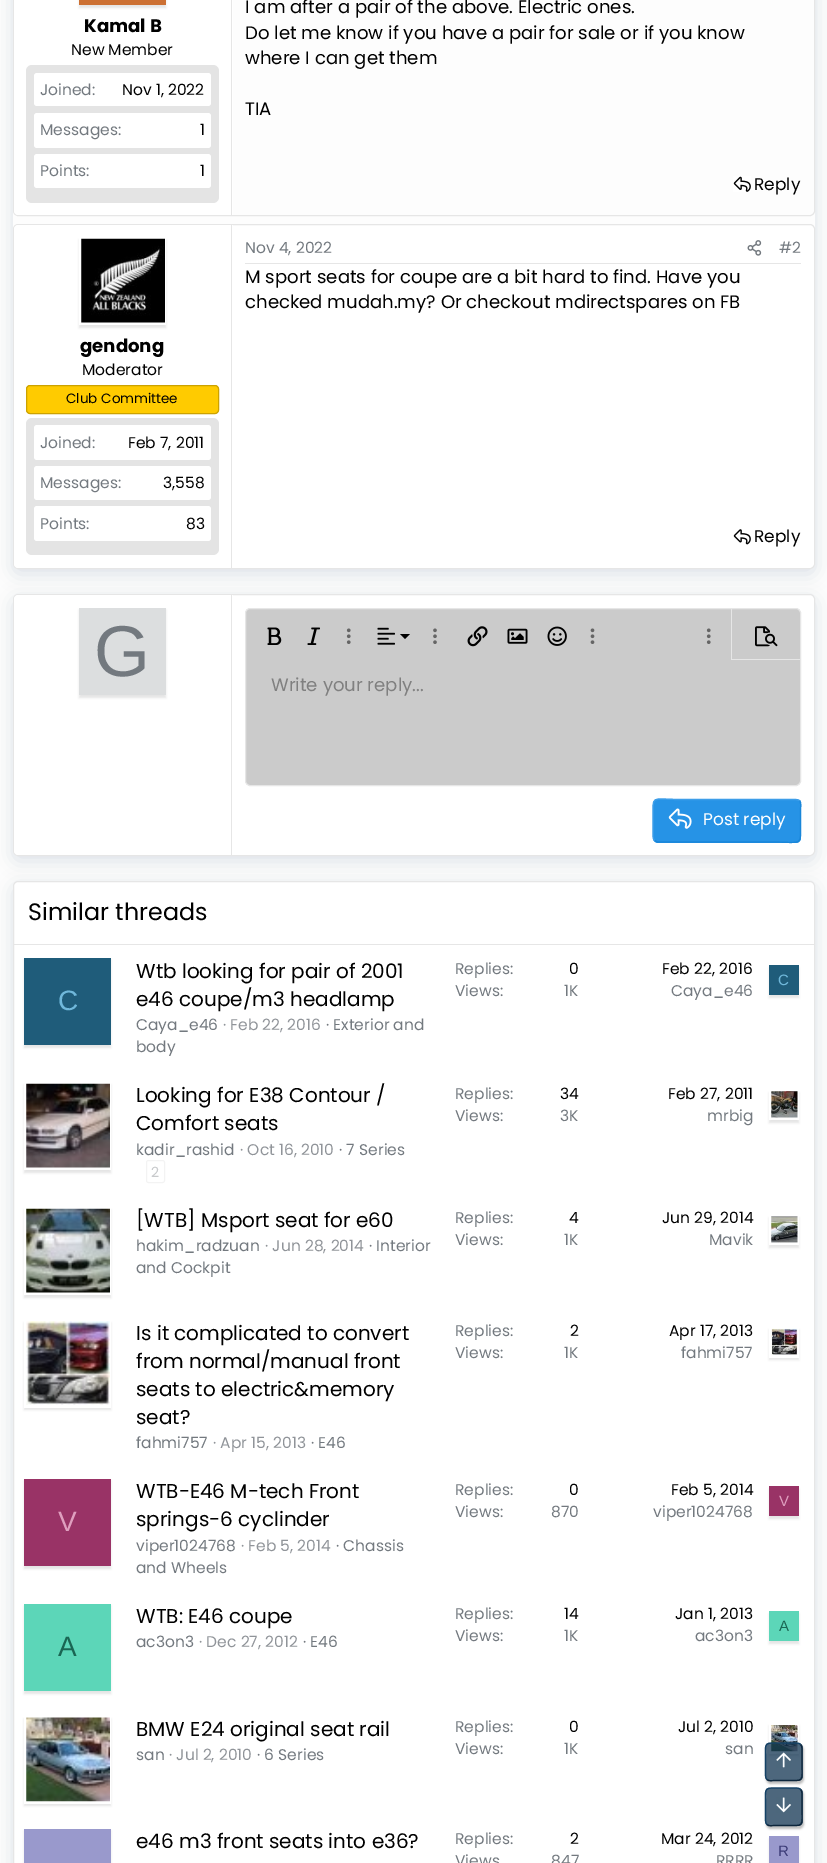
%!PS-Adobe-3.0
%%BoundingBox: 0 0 827 1863
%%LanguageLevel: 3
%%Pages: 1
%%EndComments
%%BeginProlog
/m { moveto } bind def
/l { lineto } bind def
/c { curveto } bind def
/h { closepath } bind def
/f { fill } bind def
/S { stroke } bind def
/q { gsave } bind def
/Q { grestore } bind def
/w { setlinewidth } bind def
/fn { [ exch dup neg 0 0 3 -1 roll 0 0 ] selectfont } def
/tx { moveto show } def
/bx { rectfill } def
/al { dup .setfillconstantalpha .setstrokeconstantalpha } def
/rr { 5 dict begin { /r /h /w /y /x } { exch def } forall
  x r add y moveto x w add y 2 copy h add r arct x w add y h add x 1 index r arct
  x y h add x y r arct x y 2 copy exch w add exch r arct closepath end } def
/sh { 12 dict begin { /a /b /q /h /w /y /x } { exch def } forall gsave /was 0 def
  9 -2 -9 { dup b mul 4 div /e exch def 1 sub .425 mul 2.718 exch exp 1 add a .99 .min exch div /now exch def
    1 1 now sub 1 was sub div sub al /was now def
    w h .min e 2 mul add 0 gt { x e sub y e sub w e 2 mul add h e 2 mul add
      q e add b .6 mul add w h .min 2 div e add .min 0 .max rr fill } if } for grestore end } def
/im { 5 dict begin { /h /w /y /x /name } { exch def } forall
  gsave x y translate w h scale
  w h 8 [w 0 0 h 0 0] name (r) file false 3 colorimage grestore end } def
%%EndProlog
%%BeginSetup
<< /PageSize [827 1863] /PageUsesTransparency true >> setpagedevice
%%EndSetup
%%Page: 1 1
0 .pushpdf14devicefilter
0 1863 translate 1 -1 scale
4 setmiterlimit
0.992 setgray
0 0 827 1863 bx
q
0 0 m 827 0 l 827 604 l 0 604 l h 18 -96 m 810 -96 l 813 -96 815 -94 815 -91 c 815 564 l 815 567 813 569 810 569 c 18 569 l 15 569 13 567 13 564 c 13 -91 l 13 -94 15 -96 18 -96 c h eoclip newpath
0.345 0.416 0.6 setrgbcolor
13 -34 802 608 5 9.5 0.2 sh
Q
0.902 setgray
13.5 -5.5 801 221 4.5 rr S
1 setgray
18 -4 m 233 -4 l 233 215 l 18 215 l 16 215 14 213 14 211 c 14 0 l 14 -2 16 -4 18 -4 c h f
0.902 setgray
231 0 1 215 bx
0 setgray
79 -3 87 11 0 1 0.1 sh
0.8 0.439 0.2 setrgbcolor
79 0 87 5 bx
/Poppins-Bold 18.1 fn
0 setgray
(Kamal B) 84 32 tx
/Poppins-Regular 15.5 fn
(New Member) 71 55 tx
0.894 setgray
26 65 193 138 6 rr f
1 setgray
34 73 177 33 3 rr f
0.451 0.475 0.498 setrgbcolor
(Joined:) 40 95 tx
0 setgray
(Nov 1, 2022) 122 95 tx
1 setgray
34 113 177 35 3 rr f
0.451 0.475 0.498 setrgbcolor
(Messages:) 40 135 tx
0 setgray
(1) 200 135 tx
1 setgray
34 154 177 34 3 rr f
0.451 0.475 0.498 setrgbcolor
(Points:) 40 176 tx
0 setgray
(1) 200 176 tx
/Poppins-Regular 18.1 fn
(I am after a pair of the above. Electric ones.) 245 13 tx
(Do let me know if you have a pair for sale or if you know) 245 39 tx
(where I can get them) 245 64 tx
(TIA) 245 115 tx
(image0.raw) 733 176 18 16 im
/Poppins-Regular 17 fn
(Reply) 754 190 tx
1 setgray
13.5 224.5 801 344 4.5 rr q f Q
0.902 setgray
S
1 setgray
18 225 m 233 225 l 233 568 l 18 568 l 16 568 14 566 14 564 c 14 229 l 14 227 16 225 18 225 c h f
0.902 setgray
231 225 1 343 bx
q
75 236 m 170 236 l 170 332 l 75 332 l h 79 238 m 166 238 l 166 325 l 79 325 l h eoclip newpath
0 setgray
79 240 87 88 0 1 0.1 sh
Q
(image1.raw) 81 238 84 85 im
/Poppins-Bold 18.1 fn
0 setgray
(gendong) 80 352 tx
/Poppins-Regular 15.5 fn
(Moderator) 82 375 tx
1 0.796 0 setrgbcolor
26.5 385.5 192 28 3.5 rr q f Q
0.8 0.635 0 setrgbcolor
S
/Poppins-Regular 13.5 fn
0 setgray
(Club Committee) 66 403 tx
0.894 setgray
26 418 193 137 6 rr f
1 setgray
34 425 177 35 3 rr f
/Poppins-Regular 15.5 fn
0.451 0.475 0.498 setrgbcolor
(Joined:) 40 448 tx
0 setgray
(Feb 7, 2011) 128 448 tx
1 setgray
34 466 177 34 3 rr f
0.451 0.475 0.498 setrgbcolor
(Messages:) 40 488 tx
0 setgray
(3,558) 163 488 tx
1 setgray
34 506 177 35 3 rr f
0.451 0.475 0.498 setrgbcolor
(Points:) 40 529 tx
0 setgray
(83) 186 529 tx
0.902 setgray
245 263 556 1 bx
0.451 0.475 0.498 setrgbcolor
(Nov 4, 2022) 245 253 tx
(image2.raw) 747 240 15 16 im
(#2) 779 253 tx
/Poppins-Regular 18.1 fn
0 setgray
(M sport seats for coupe are a bit hard to find. Have you) 245 283 tx
(checked mudah.my? Or checkout mdirectspares on FB) 245 308 tx
(image3.raw) 733 529 18 16 im
/Poppins-Regular 17 fn
(Reply) 754 542 tx
0.345 0.416 0.6 setrgbcolor
13 599 802 262 5 9.5 0.2 sh
1 setgray
13.5 594.5 801 261 4.5 rr q f Q
0.902 setgray
S
1 setgray
18 595 m 233 595 l 233 855 l 18 855 l 16 855 14 853 14 851 c 14 599 l 14 597 16 595 18 595 c h f
0.902 setgray
231 595 1 260 bx
0 setgray
79 610 87 88 0 1 0.1 sh
0.863 0.871 0.875 setrgbcolor
79 608 87 87 bx
/LiberationSans-Regular 72 fn
0.451 0.475 0.498 setrgbcolor
(G) 94 676 tx
0.796 setgray
245.5 608.5 555 177 4.5 rr q f Q
0.902 setgray
S
(image4.raw) 267 627 15 18 im
(image5.raw) 307 627 13 18 im
(image6.raw) 346 628 5 16 im
(image7.raw) 377 627 18 18 im
0 setgray
400 634 m 410 634 l 405 639 l h f
(image8.raw) 433 628 4 16 im
(image9.raw) 467 626 21 21 im
(image10.raw) 507 628 21 16 im
(image11.raw) 547 626 20 20 im
(image12.raw) 590 628 5 16 im
(image6.raw) 706 628 5 16 im
0.902 setgray
731 659 69 1 bx
731 609 1 51 bx
(image13.raw) 755 626 23 21 im
/Poppins-Regular 18.1 fn
0.502 setgray
(Write your reply...) 271 691 tx
0.149 0.576 0.902 setrgbcolor
653 799 148 44 5 rr f
0.098 0.525 0.851 setrgbcolor
1.2 w
799.5 800.5 m 801.5 803 800.5 807 800.5 809.5 c 800.5 820.5 l 800.5 847.5 804 842 773 842 c 657.5 842 l 654.5 840.5 l S
0.239 0.62 0.914 setrgbcolor
654.5 840.5 m 652.5 838.5 653 834.5 653 832 c 653 820.5 l 653 793.5 650 799.5 680.5 799.5 c 796 799.5 l 799.5 800.5 l S
(image14.raw) 668 808 24 21 im
/Poppins-Regular 17 fn
1 setgray
(Post reply) 703 825 tx
0.345 0.416 0.6 setrgbcolor
13 886 802 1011 5 9.5 0.2 sh
1 setgray
13.5 881.5 801 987 4.5 rr q f Q
0.902 setgray
1 w
S
14 944 800 1 bx
/Poppins-Regular 23.75 fn
0 setgray
(Similar threads) 28 920 tx
/Poppins-Regular 20 fn
(Wtb looking for pair of 2001) 136 978 tx
(e46 coupe/m3 headlamp) 136 1006 tx
/Poppins-Regular 15.5 fn
0.451 0.475 0.498 setrgbcolor
(Caya_e46) 136 1030 tx
0.565 0.58 0.6 setrgbcolor
(· Feb 22, 2016) 223 1030 tx
0.451 0.475 0.498 setrgbcolor
(· Exterior and) 326 1030 tx
(body) 136 1052 tx
(Replies:) 455 974 tx
0 setgray
(0) 569 974 tx
0.451 0.475 0.498 setrgbcolor
(Views:) 455 996 tx
(1K) 564 996 tx
0 setgray
(Feb 22, 2016) 662 974 tx
0.451 0.475 0.498 setrgbcolor
(Caya_e46) 671 996 tx
0 setgray
769 968 30 30 0 1 0.1 sh
0.122 0.361 0.478 setrgbcolor
769 965 30 30 bx
/LiberationSans-Regular 15 fn
0.439 0.722 0.859 setrgbcolor
(C) 778 985 tx
0 setgray
24 960 87 88 0 1 0.1 sh
0.122 0.361 0.478 setrgbcolor
24 958 87 87 bx
/LiberationSans-Regular 28 fn
0.439 0.722 0.859 setrgbcolor
(C) 58 1010 tx
q
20 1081 m 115 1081 l 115 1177 l 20 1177 l h 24 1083 m 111 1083 l 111 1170 l 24 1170 l h eoclip newpath
0 setgray
24 1085 87 88 0 1 0.1 sh
Q
(image15.raw) 26 1083 84 85 im
/Poppins-Regular 20 fn
0 setgray
(Looking for E38 Contour /) 136 1102 tx
(Comfort seats) 136 1130 tx
/Poppins-Regular 15.5 fn
0.451 0.475 0.498 setrgbcolor
(kadir_rashid) 136 1155 tx
0.565 0.58 0.6 setrgbcolor
(· Oct 16, 2010) 240 1155 tx
0.451 0.475 0.498 setrgbcolor
(· 7 Series) 339 1155 tx
0.953 setgray
146.5 1160.5 18 22 2 rr S
/Poppins-Regular 14 fn
0.784 0.792 0.8 setrgbcolor
(2) 151 1177 tx
/Poppins-Regular 15.5 fn
0.451 0.475 0.498 setrgbcolor
(Replies:) 455 1099 tx
0 setgray
(34) 560 1099 tx
0.451 0.475 0.498 setrgbcolor
(Views:) 455 1121 tx
(3K) 560 1121 tx
0 setgray
(Feb 27, 2011) 668 1099 tx
0.451 0.475 0.498 setrgbcolor
(mrbig) 707 1121 tx
q
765 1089 m 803 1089 l 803 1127 l 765 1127 l h 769 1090 m 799 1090 l 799 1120 l 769 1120 l h eoclip newpath
0 setgray
769 1093 30 30 0 1 0.1 sh
Q
(image16.raw) 771 1091 27 27 im
q
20 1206 m 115 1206 l 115 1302 l 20 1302 l h 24 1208 m 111 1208 l 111 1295 l 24 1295 l h eoclip newpath
0 setgray
24 1210 87 88 0 1 0.1 sh
Q
(image17.raw) 26 1208 84 85 im
/Poppins-Regular 20 fn
0 setgray
([WTB] Msport seat for e60) 136 1227 tx
/Poppins-Regular 15.5 fn
0.451 0.475 0.498 setrgbcolor
(hakim_radzuan) 136 1251 tx
0.565 0.58 0.6 setrgbcolor
(· Jun 28, 2014) 265 1251 tx
0.451 0.475 0.498 setrgbcolor
(· Interior) 369 1251 tx
(and Cockpit) 136 1273 tx
(Replies:) 455 1223 tx
0 setgray
(4) 569 1223 tx
0.451 0.475 0.498 setrgbcolor
(Views:) 455 1245 tx
(1K) 564 1245 tx
0 setgray
(Jun 29, 2014) 662 1223 tx
0.451 0.475 0.498 setrgbcolor
(Mavik) 709 1245 tx
q
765 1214 m 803 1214 l 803 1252 l 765 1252 l h 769 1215 m 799 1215 l 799 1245 l 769 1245 l h eoclip newpath
0 setgray
769 1218 30 30 0 1 0.1 sh
Q
(image18.raw) 771 1216 27 27 im
q
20 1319 m 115 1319 l 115 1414 l 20 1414 l h 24 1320 m 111 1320 l 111 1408 l 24 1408 l h eoclip newpath
0 setgray
24 1323 87 87 0 1 0.1 sh
Q
(image19.raw) 26 1321 84 84 im
/Poppins-Regular 20 fn
0 setgray
(Is it complicated to convert) 136 1340 tx
(from normal/manual front) 136 1368 tx
(seats to electric&memory) 136 1396 tx
(seat?) 136 1424 tx
/Poppins-Regular 15.5 fn
0.451 0.475 0.498 setrgbcolor
(fahmi757) 136 1448 tx
0.565 0.58 0.6 setrgbcolor
(· Apr 15, 2013) 213 1448 tx
0.451 0.475 0.498 setrgbcolor
(· E46) 311 1448 tx
(Replies:) 455 1336 tx
0 setgray
(2) 570 1336 tx
0.451 0.475 0.498 setrgbcolor
(Views:) 455 1358 tx
(1K) 564 1358 tx
0 setgray
(Apr 17, 2013) 669 1336 tx
0.451 0.475 0.498 setrgbcolor
(fahmi757) 681 1358 tx
q
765 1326 m 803 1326 l 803 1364 l 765 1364 l h 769 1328 m 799 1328 l 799 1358 l 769 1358 l h eoclip newpath
0 setgray
769 1330 30 30 0 1 0.1 sh
Q
(image20.raw) 771 1328 27 27 im
/Poppins-Regular 20 fn
0 setgray
(WTB-E46 M-tech Front) 136 1498 tx
(springs-6 cyclinder) 136 1526 tx
/Poppins-Regular 15.5 fn
0.451 0.475 0.498 setrgbcolor
(viper1024768) 136 1551 tx
0.565 0.58 0.6 setrgbcolor
(· Feb 5, 2014) 241 1551 tx
0.451 0.475 0.498 setrgbcolor
(· Chassis) 336 1551 tx
(and Wheels) 136 1573 tx
(Replies:) 455 1495 tx
0 setgray
(0) 569 1495 tx
0.451 0.475 0.498 setrgbcolor
(Views:) 455 1517 tx
(870) 551 1517 tx
0 setgray
(Feb 5, 2014) 671 1495 tx
0.451 0.475 0.498 setrgbcolor
(viper1024768) 653 1517 tx
0 setgray
769 1489 30 30 0 1 0.1 sh
0.6 0.2 0.4 setrgbcolor
769 1486 30 30 bx
/LiberationSans-Regular 15 fn
0.875 0.624 0.749 setrgbcolor
(V) 779 1506 tx
0 setgray
24 1481 87 88 0 1 0.1 sh
0.6 0.2 0.4 setrgbcolor
24 1479 87 87 bx
/LiberationSans-Regular 28 fn
0.875 0.624 0.749 setrgbcolor
(V) 58 1531 tx
/Poppins-Regular 20 fn
0 setgray
(WTB: E46 coupe) 136 1623 tx
/Poppins-Regular 15.5 fn
0.451 0.475 0.498 setrgbcolor
(ac3on3) 136 1647 tx
0.565 0.58 0.6 setrgbcolor
(· Dec 27, 2012) 199 1647 tx
0.451 0.475 0.498 setrgbcolor
(· E46) 303 1647 tx
(Replies:) 455 1619 tx
0 setgray
(14) 564 1619 tx
0.451 0.475 0.498 setrgbcolor
(Views:) 455 1641 tx
(1K) 564 1641 tx
0 setgray
(Jan 1, 2013) 675 1619 tx
0.451 0.475 0.498 setrgbcolor
(ac3on3) 695 1641 tx
0 setgray
769 1614 30 30 0 1 0.1 sh
0.361 0.839 0.722 setrgbcolor
769 1611 30 30 bx
/LiberationSans-Regular 15 fn
0.102 0.4 0.325 setrgbcolor
(A) 779 1631 tx
0 setgray
24 1606 87 88 0 1 0.1 sh
0.361 0.839 0.722 setrgbcolor
24 1604 87 87 bx
/LiberationSans-Regular 28 fn
0.102 0.4 0.325 setrgbcolor
(A) 58 1656 tx
q
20 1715 m 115 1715 l 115 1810 l 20 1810 l h 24 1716 m 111 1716 l 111 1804 l 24 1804 l h eoclip newpath
0 setgray
24 1719 87 87 0 1 0.1 sh
Q
(image21.raw) 26 1717 84 85 im
/Poppins-Regular 20 fn
0 setgray
(BMW E24 original seat rail) 136 1736 tx
/Poppins-Regular 15.5 fn
0.451 0.475 0.498 setrgbcolor
(san) 136 1760 tx
0.565 0.58 0.6 setrgbcolor
(· Jul 2, 2010) 169 1760 tx
0.451 0.475 0.498 setrgbcolor
(· 6 Series) 257 1760 tx
(Replies:) 455 1732 tx
0 setgray
(0) 569 1732 tx
0.451 0.475 0.498 setrgbcolor
(Views:) 455 1754 tx
(1K) 564 1754 tx
0 setgray
(Jul 2, 2010) 678 1732 tx
0.451 0.475 0.498 setrgbcolor
(san) 725 1754 tx
q
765 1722 m 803 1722 l 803 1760 l 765 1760 l h 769 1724 m 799 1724 l 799 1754 l 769 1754 l h eoclip newpath
0 setgray
769 1726 30 30 0 1 0.1 sh
Q
(image22.raw) 771 1725 27 27 im
0 setgray
24 1831 87 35 0 1 0.1 sh
0.6 0.6 0.8 setrgbcolor
24 1829 87 34 bx
/Poppins-Regular 20 fn
0 setgray
(e46 m3 front seats into e36?) 136 1848 tx
/Poppins-Regular 15.5 fn
0.451 0.475 0.498 setrgbcolor
(Replies:) 455 1844 tx
0 setgray
(2) 570 1844 tx
0.451 0.475 0.498 setrgbcolor
(Views) 455 1866 tx
(847) 551 1866 tx
0 setgray
(Mar 24, 2012) 661 1844 tx
0.451 0.475 0.498 setrgbcolor
(RRRR) 716 1866 tx
0 setgray
769 1839 30 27 0 1 0.1 sh
0.6 0.6 0.8 setrgbcolor
769 1836 30 27 bx
/LiberationSans-Regular 15 fn
0.235 0.235 0.467 setrgbcolor
(R) 778 1856 tx
q
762 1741 m 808 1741 l 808 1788 l 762 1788 l h 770 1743 m 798 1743 l 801 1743 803 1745 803 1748 c 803 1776 l 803 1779 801 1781 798 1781 c 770 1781 l 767 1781 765 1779 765 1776 c 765 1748 l 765 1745 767 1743 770 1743 c h eoclip newpath
0 setgray
766 1745 38 39 5 1 0.25 sh
Q
0.75 al
0.067 0.204 0.318 setrgbcolor
765 1743 38 38 5 rr f
1 al
0.051 0.149 0.235 setrgbcolor
1.2 w
800.5 1744.5 m 802.5 1746.5 802 1750 802 1752.5 c 802 1762 l 802 1783 805 1780.5 784 1780.5 c 774.5 1780.5 l 772 1780.5 769 1781.5 767 1779.5 c S
0.082 0.259 0.4 setrgbcolor
767 1779.5 m 765 1777.5 765.5 1774 765.5 1771.5 c 765.5 1762 l 765.5 1740.5 762.5 1743 784 1743 c 793 1743 l 795.5 1743 798.5 1742.5 800.5 1744.5 c S
(image23.raw) 776 1752 15 16 im
q
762 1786 m 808 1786 l 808 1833 l 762 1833 l h 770 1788 m 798 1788 l 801 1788 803 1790 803 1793 c 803 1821 l 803 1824 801 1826 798 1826 c 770 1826 l 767 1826 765 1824 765 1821 c 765 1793 l 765 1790 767 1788 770 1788 c h eoclip newpath
0 setgray
766 1790 38 39 5 1 0.25 sh
Q
0.75 al
0.067 0.204 0.318 setrgbcolor
765 1788 38 38 5 rr f
1 al
0.051 0.149 0.235 setrgbcolor
800.5 1789.5 m 802.5 1791.5 802 1795 802 1797.5 c 802 1807 l 802 1828 805 1825.5 784 1825.5 c 774.5 1825.5 l 772 1825.5 769 1826.5 767 1824.5 c S
0.082 0.259 0.4 setrgbcolor
767 1824.5 m 765 1822.5 765.5 1819 765.5 1816.5 c 765.5 1807 l 765.5 1785.5 762.5 1788 784 1788 c 793 1788 l 795.5 1788 798.5 1787.5 800.5 1789.5 c S
(image24.raw) 776 1797 15 16 im
.poppdf14devicefilter showpage
%%EOF
